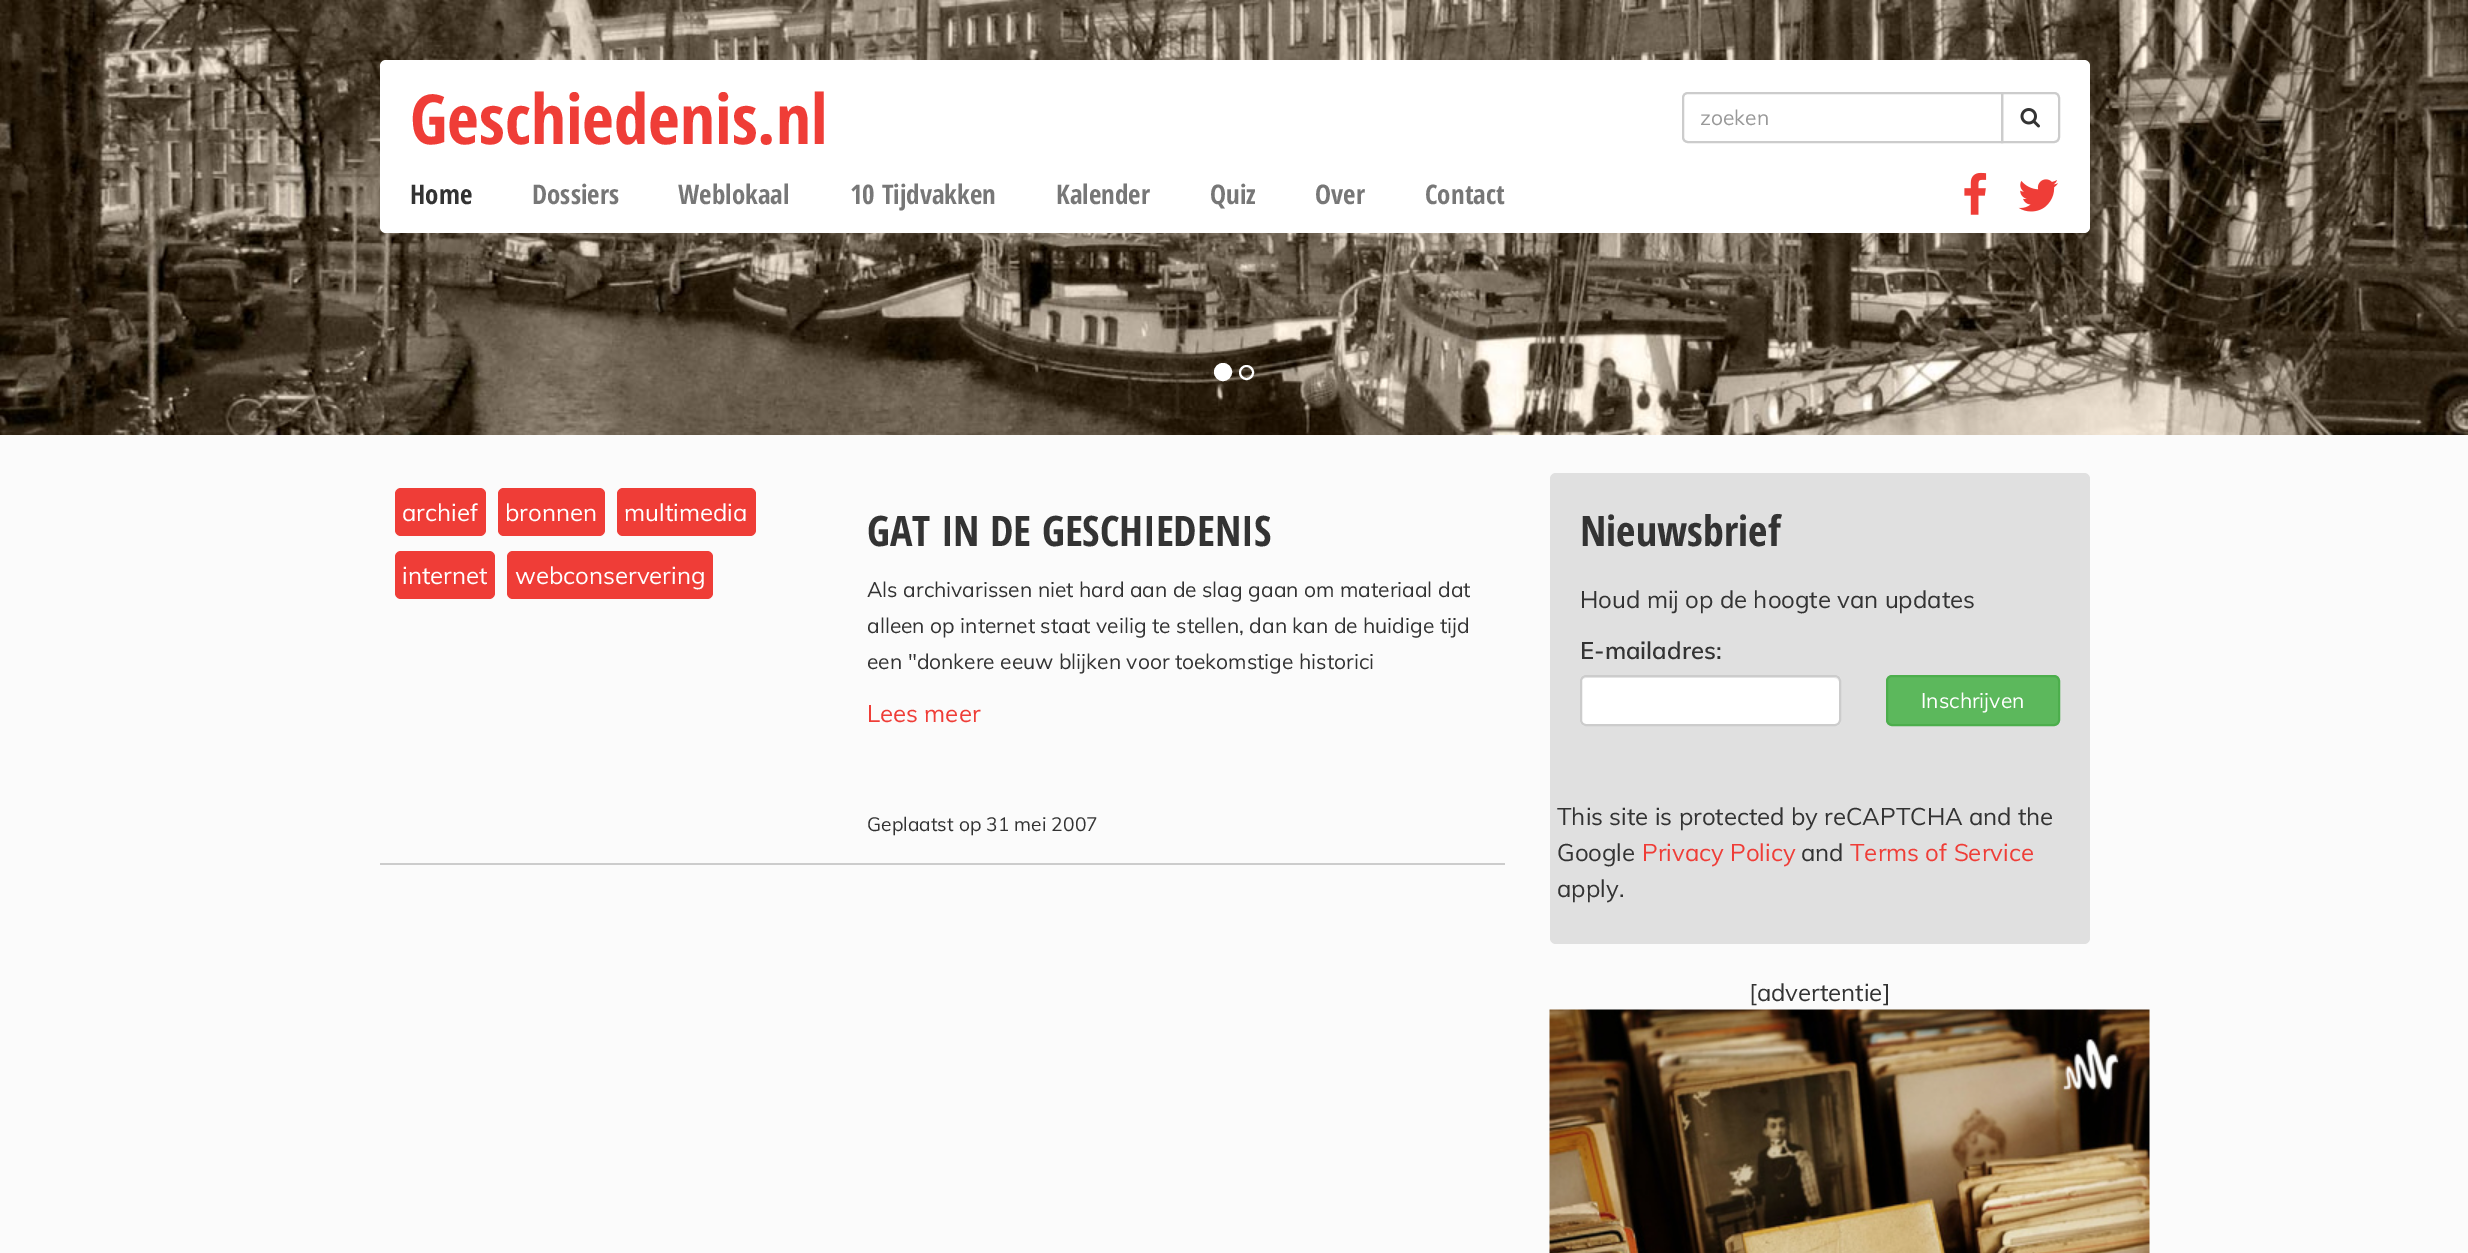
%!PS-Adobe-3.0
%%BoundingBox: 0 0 2468 1253
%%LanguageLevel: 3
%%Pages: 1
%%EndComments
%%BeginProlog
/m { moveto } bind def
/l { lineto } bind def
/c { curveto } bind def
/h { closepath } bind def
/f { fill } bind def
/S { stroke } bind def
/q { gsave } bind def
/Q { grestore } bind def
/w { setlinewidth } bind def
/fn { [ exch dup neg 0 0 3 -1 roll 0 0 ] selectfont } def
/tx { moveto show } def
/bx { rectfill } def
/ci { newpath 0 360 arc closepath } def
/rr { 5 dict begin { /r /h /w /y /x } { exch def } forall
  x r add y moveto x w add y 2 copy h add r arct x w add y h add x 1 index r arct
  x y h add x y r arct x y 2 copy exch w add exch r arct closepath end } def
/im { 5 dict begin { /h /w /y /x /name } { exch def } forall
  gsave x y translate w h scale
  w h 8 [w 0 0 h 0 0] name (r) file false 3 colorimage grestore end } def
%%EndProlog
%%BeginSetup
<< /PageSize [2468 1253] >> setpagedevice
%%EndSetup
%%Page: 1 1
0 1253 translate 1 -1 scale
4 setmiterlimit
0.984 setgray
0 0 2468 1253 bx
(image0.raw) 0 0 2468 435 im
1 setgray
1223 372 8 ci q f Q
2 w
S
1246.5 372.5 6.5 ci S
380 60 1710 173 6 rr f
/OpenSansCondensed-Bold 69 fn
0.937 0.239 0.216 setrgbcolor
(Geschiedenis.nl) 410 144 tx
0.8 setgray
2002 93 m 2054 93 l 2057 93 2059 95 2059 98 c 2059 137 l 2059 140 2057 142 2054 142 c 2002 142 l h S
1 setgray
1688 93 m 2002 93 l 2002 142 l 1688 142 l 1685 142 1683 140 1683 137 c 1683 98 l 1683 95 1685 93 1688 93 c h q f Q
0.8 setgray
S
/Muli-Regular 21 fn
0.6 setgray
(zoeken) 1700 125 tx
(image1.raw) 2020 108 20 20 im
/OpenSansCondensed-Bold 27 fn
0.2 setgray
(Home) 410 204 tx
0.467 setgray
(Dossiers) 532 204 tx
(Weblokaal) 678 204 tx
(10 Tijdvakken) 850 204 tx
(Kalender) 1056 204 tx
(Quiz) 1210 204 tx
(Over) 1315 204 tx
(Contact) 1425 204 tx
(image2.raw) 1964 172 23 43 im
(image3.raw) 2018 179 40 33 im
0.937 0.239 0.216 setrgbcolor
395 488 91 48 6 rr f
/Muli-Regular 24 fn
1 setgray
(archief) 402 521 tx
0.937 0.239 0.216 setrgbcolor
498 488 107 48 6 rr f
1 setgray
(bronnen) 505 521 tx
0.937 0.239 0.216 setrgbcolor
617 488 139 48 6 rr f
1 setgray
(multimedia) 624 521 tx
0.937 0.239 0.216 setrgbcolor
395 551 100 48 6 rr f
1 setgray
(internet) 402 584 tx
0.937 0.239 0.216 setrgbcolor
507 551 206 48 6 rr f
1 setgray
(webconservering) 515 584 tx
/OpenSansCondensed-Bold 42 fn
0.2 setgray
(GAT IN DE GESCHIEDENIS) 867 546 tx
/Muli-Regular 21 fn
(Als archivarissen niet hard aan de slag gaan om materiaal dat) 867 597 tx
(alleen op internet staat veilig te stellen, dan kan de huidige tijd) 867 633 tx
(een "donkere eeuw blijken voor toekomstige historici) 867 669 tx
/Muli-Regular 24 fn
0.937 0.239 0.216 setrgbcolor
(Lees meer) 867 722 tx
/Muli-Regular 19.25 fn
0.2 setgray
(Geplaatst op 31 mei 2007) 867 831 tx
0.8 setgray
380 863 1125 2 bx
0.878 setgray
1550 473 540 471 6 rr f
/OpenSansCondensed-Bold 42 fn
0.2 setgray
(Nieuwsbrief) 1580 546 tx
/Muli-Regular 24 fn
(Houd mij op de hoogte van updates) 1580 608 tx
/Muli-SemiBold 24 fn
(E-mailadres:) 1580 659 tx
1 setgray
1580 675 261 51 6 rr f
0.925 setgray
1586 678 m 1834 678 l 1837 678 1839 680 1839 682 c 1839 679 1837 677 1834 677 c 1586 677 l 1583 677 1581 679 1581 682 c 1581 680 1583 678 1586 678 c h f
0.8 setgray
1581 676 259 49 5 rr S
0.361 0.722 0.361 setrgbcolor
1887 676 172 49 5 rr q f Q
0.298 0.682 0.298 setrgbcolor
S
/Muli-Regular 21 fn
1 setgray
(Inschrijven) 1921 708 tx
/Muli-Regular 24 fn
0.2 setgray
(This site is protected by reCAPTCHA and the) 1557 825 tx
(Google) 1557 861 tx
0.937 0.239 0.216 setrgbcolor
(Privacy Policy) 1642 861 tx
0.2 setgray
(and) 1801 861 tx
0.937 0.239 0.216 setrgbcolor
(Terms of Service) 1850 861 tx
0.2 setgray
(apply.) 1557 897 tx
([advertentie]) 1749 1001 tx
(image4.raw) 1549 1009 601 244 im
showpage
%%EOF
